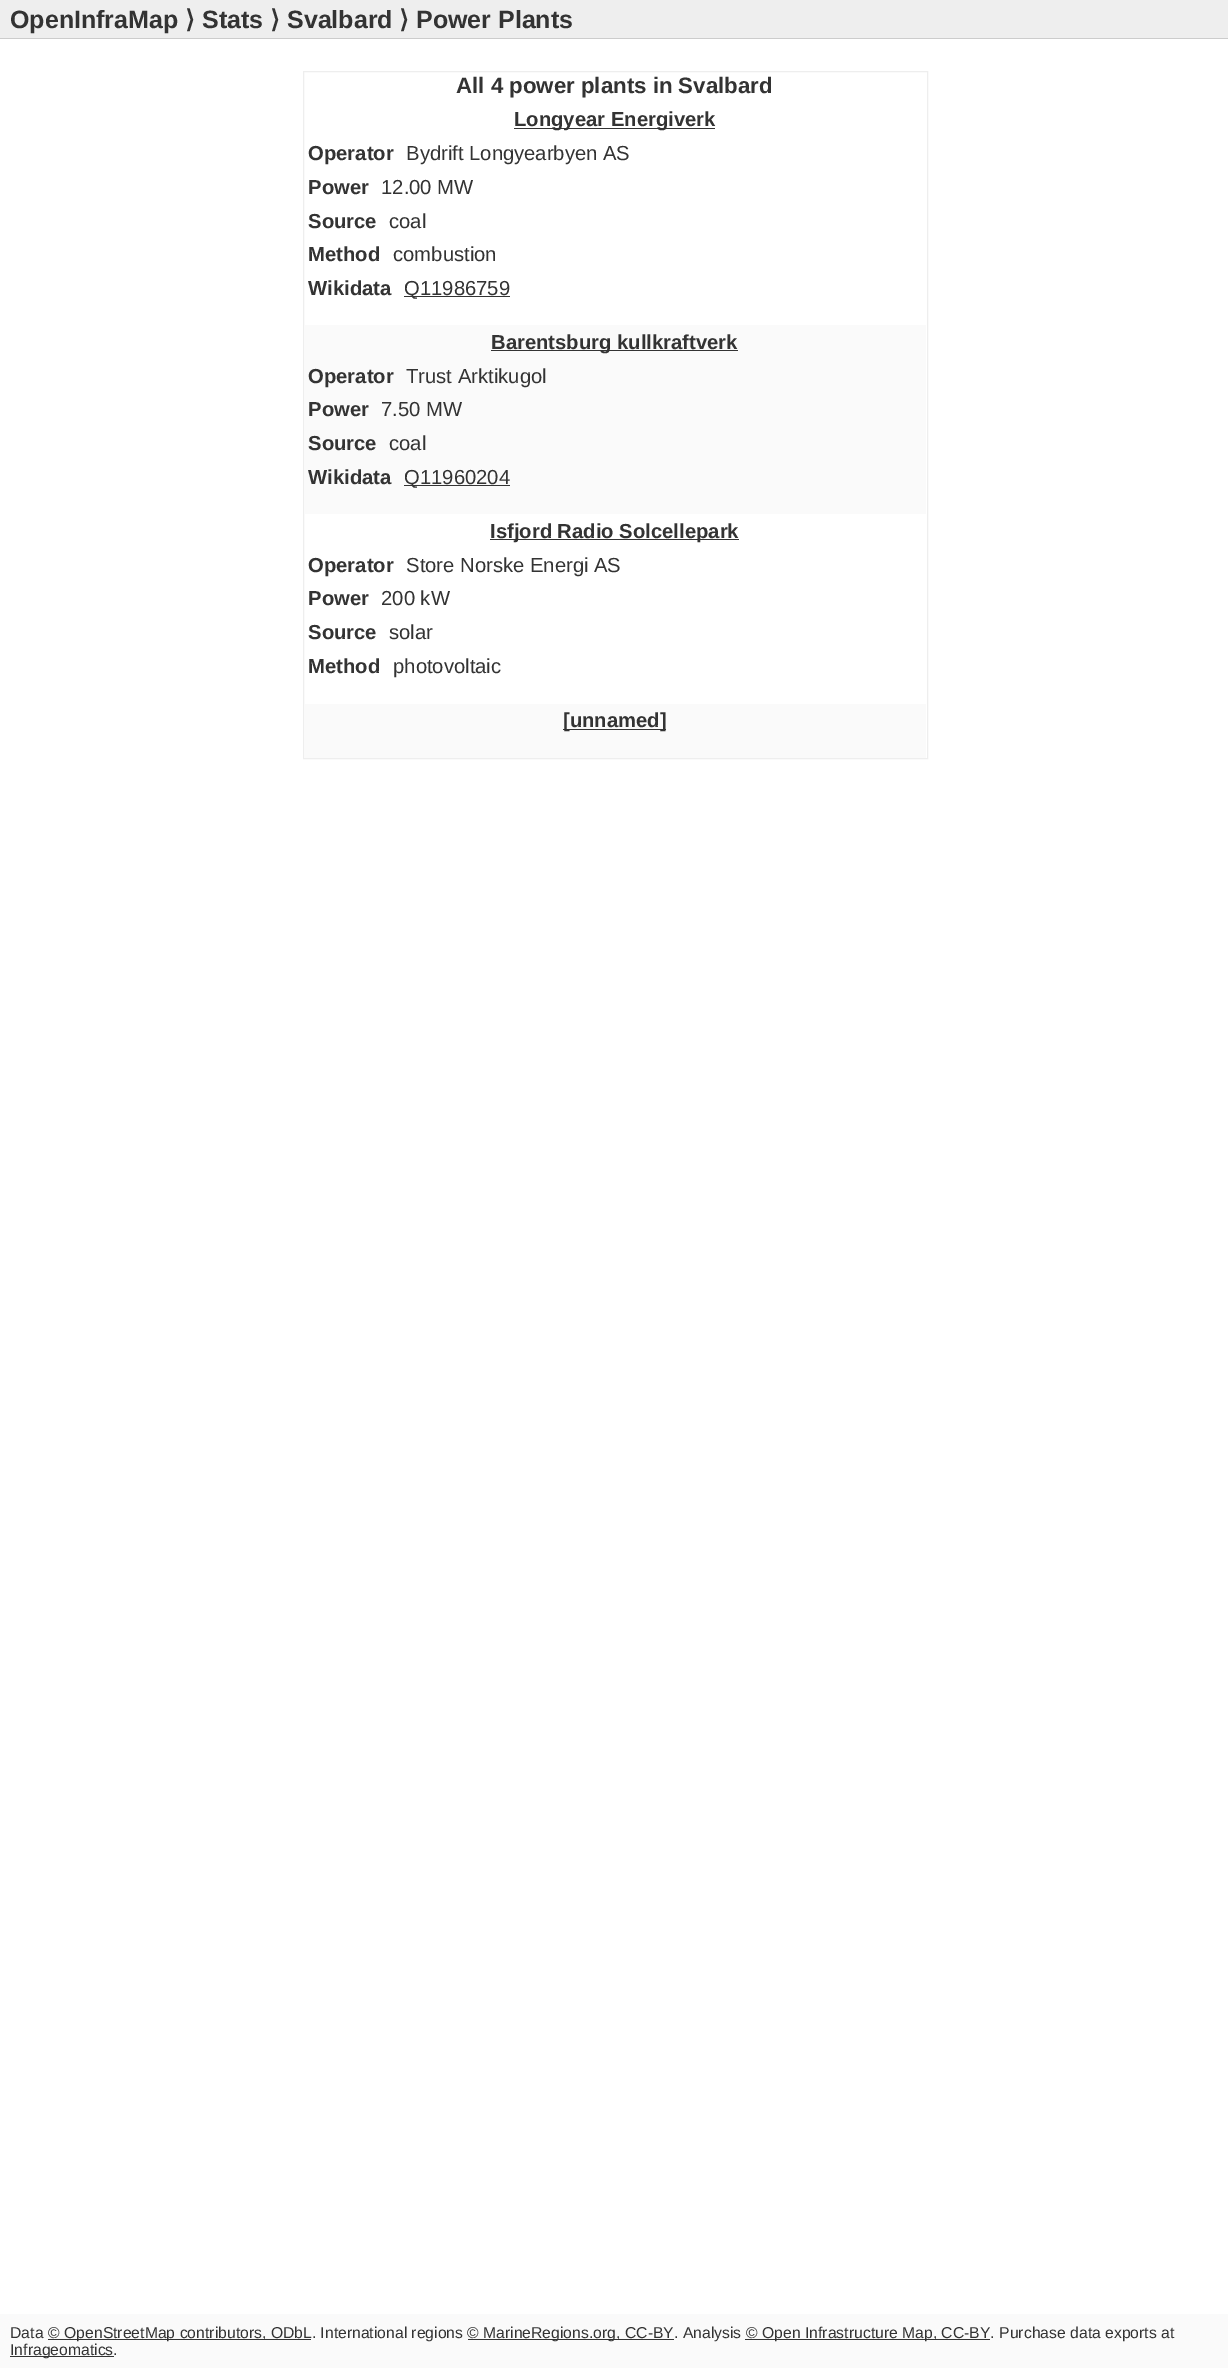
%!PS-Adobe-3.0
%%BoundingBox: 0 0 1228 2368
%%LanguageLevel: 3
%%Pages: 1
%%EndComments
%%BeginProlog
/fn { [ exch dup neg 0 0 3 -1 roll 0 0 ] selectfont } def
/tx { moveto show } def
/bx { rectfill } def
%%EndProlog
%%BeginSetup
<< /PageSize [1228 2368] >> setpagedevice
%%EndSetup
%%Page: 1 1
0 2368 translate 1 -1 scale
4 setmiterlimit
1 setgray
0 0 1228 2368 bx
0.933 setgray
0 0 1228 38 bx
0.8 setgray
0 38 1228 1 bx
/LiberationSans-Bold 25 fn
0.2 setgray
(OpenInfraMap) 10 28 tx
/DejaVuSans-Bold 25 fn
(⟩) 185 28 tx
/LiberationSans-Bold 25 fn
(Stats) 202 28 tx
/DejaVuSans-Bold 25 fn
(⟩) 270 28 tx
/LiberationSans-Bold 25 fn
(Svalbard) 287 28 tx
/DejaVuSans-Bold 25 fn
(⟩) 399 28 tx
/LiberationSans-Bold 25 fn
(Power Plants) 416 28 tx
0.933 setgray
303.5 71.5 624 687 rectstroke
/LiberationSans-Bold 22.25 fn
0.2 setgray
(All 4 power plants in Svalbard) 456 93 tx
514 128 201 1 bx
/LiberationSans-Bold 20.25 fn
(Longyear Energiverk) 514 126 tx
(Operator) 308 160 tx
/LiberationSans-Regular 20.25 fn
(Bydrift Longyearbyen AS) 406 160 tx
/LiberationSans-Bold 20.25 fn
(Power) 308 194 tx
/LiberationSans-Regular 20.25 fn
(12.00 MW) 381 194 tx
/LiberationSans-Bold 20.25 fn
(Source) 308 228 tx
/LiberationSans-Regular 20.25 fn
(coal) 389 228 tx
/LiberationSans-Bold 20.25 fn
(Method) 308 261 tx
/LiberationSans-Regular 20.25 fn
(combustion) 393 261 tx
/LiberationSans-Bold 20.25 fn
(Wikidata) 308 295 tx
404 296 106 1 bx
/LiberationSans-Regular 20.25 fn
(Q11986759) 404 295 tx
0.98 setgray
304 325 622 189 bx
0.2 setgray
491 350 247 1 bx
/LiberationSans-Bold 20.25 fn
(Barentsburg kullkraftverk) 491 349 tx
(Operator) 308 383 tx
/LiberationSans-Regular 20.25 fn
(Trust Arktikugol) 406 383 tx
/LiberationSans-Bold 20.25 fn
(Power) 308 416 tx
/LiberationSans-Regular 20.25 fn
(7.50 MW) 381 416 tx
/LiberationSans-Bold 20.25 fn
(Source) 308 450 tx
/LiberationSans-Regular 20.25 fn
(coal) 389 450 tx
/LiberationSans-Bold 20.25 fn
(Wikidata) 308 484 tx
404 485 106 1 bx
/LiberationSans-Regular 20.25 fn
(Q11960204) 404 484 tx
490 539 249 1 bx
/LiberationSans-Bold 20.25 fn
(Isfjord Radio Solcellepark) 490 538 tx
(Operator) 308 572 tx
/LiberationSans-Regular 20.25 fn
(Store Norske Energi AS) 406 572 tx
/LiberationSans-Bold 20.25 fn
(Power) 308 605 tx
/LiberationSans-Regular 20.25 fn
(200 kW) 381 605 tx
/LiberationSans-Bold 20.25 fn
(Source) 308 639 tx
/LiberationSans-Regular 20.25 fn
(solar) 389 639 tx
/LiberationSans-Bold 20.25 fn
(Method) 308 673 tx
/LiberationSans-Regular 20.25 fn
(photovoltaic) 393 673 tx
0.98 setgray
304 704 622 54 bx
0.2 setgray
563 729 103 1 bx
/LiberationSans-Bold 20.25 fn
([unnamed]) 563 727 tx
0.98 setgray
0 2314 1228 54 bx
/LiberationSans-Regular 15.75 fn
0.2 setgray
(Data) 10 2338 tx
48 2339 263 1 bx
(© OpenStreetMap contributors, ODbL. International regions) 48 2338 tx
468 2339 206 1 bx
(© MarineRegions.org, CC-BY. Analysis) 467 2338 tx
745 2339 245 1 bx
(© Open Infrastructure Map, CC-BY. Purchase data exports at) 746 2338 tx
10 2356 104 1 bx
(Infrageomatics.) 10 2355 tx
showpage
%%EOF
